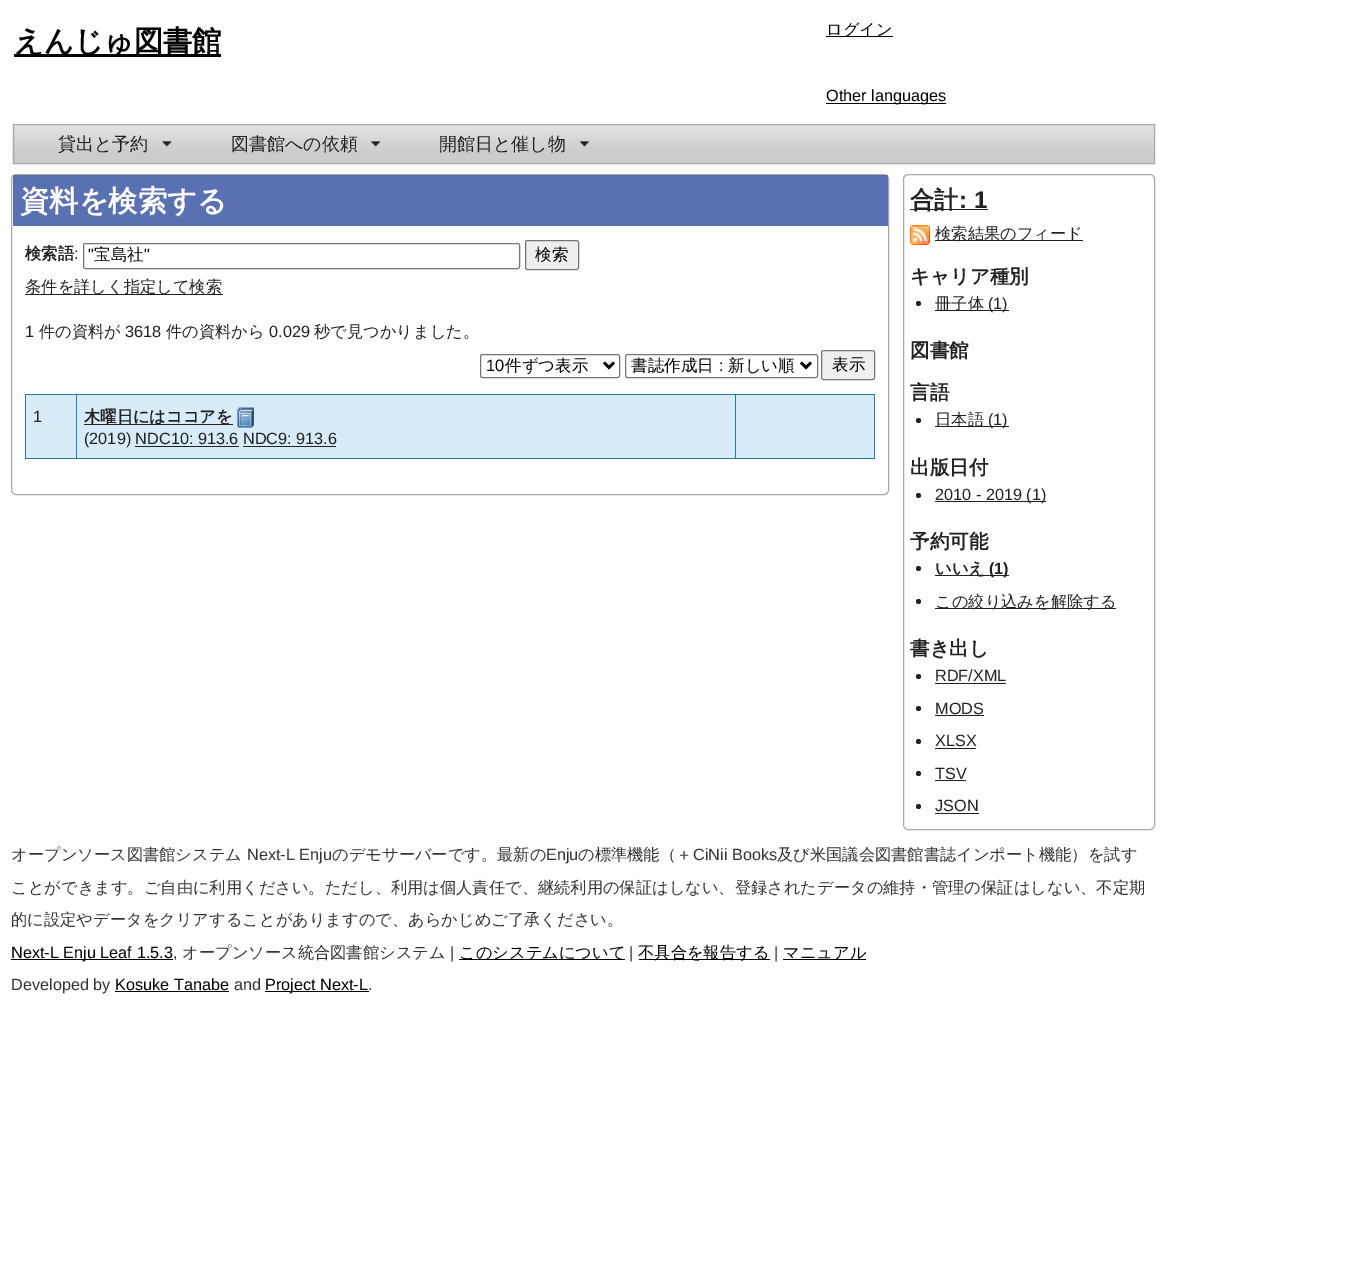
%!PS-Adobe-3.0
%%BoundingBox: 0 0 1370 1263
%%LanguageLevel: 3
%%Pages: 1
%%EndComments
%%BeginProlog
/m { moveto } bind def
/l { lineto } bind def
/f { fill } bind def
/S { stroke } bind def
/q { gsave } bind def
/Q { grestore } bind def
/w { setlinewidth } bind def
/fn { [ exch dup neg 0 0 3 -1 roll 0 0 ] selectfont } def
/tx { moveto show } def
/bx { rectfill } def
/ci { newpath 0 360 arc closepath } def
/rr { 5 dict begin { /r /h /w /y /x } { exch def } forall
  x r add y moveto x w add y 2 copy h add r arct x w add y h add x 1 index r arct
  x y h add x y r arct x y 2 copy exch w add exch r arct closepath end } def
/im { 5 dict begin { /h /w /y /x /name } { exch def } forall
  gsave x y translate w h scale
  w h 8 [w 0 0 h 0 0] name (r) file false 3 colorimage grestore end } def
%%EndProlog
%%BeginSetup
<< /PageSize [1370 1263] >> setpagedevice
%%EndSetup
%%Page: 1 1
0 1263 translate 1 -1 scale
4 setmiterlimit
1 setgray
0 0 1370 1263 bx
0 setgray
14 54 207 3 bx
/WenQuanYiZenHei-Bold 29.25 fn
(えんじゅ図書館) 14 51 tx
826 36 67 1 bx
/WenQuanYiZenHei-Medium 16.25 fn
(ログイン) 826 35 tx
826 103 120 1 bx
/LiberationSans-Regular 16.25 fn
(Other languages) 826 101 tx
(image0.raw) 12 123 1143 41 im
0.667 setgray
13.5 124.5 1141 39 rectstroke
/WenQuanYiZenHei-Medium 18 fn
0.133 setgray
(貸出と予約) 58 150 tx
(image1.raw) 162 141 10 6 im
(図書館への依頼) 231 150 tx
(image2.raw) 371 141 10 6 im
(開館日と催し物) 439 150 tx
(image3.raw) 579 141 10 6 im
0.667 setgray
11.5 174.5 877 320 4.5 rr S
0.349 0.439 0.698 setrgbcolor
13 175 875 51 bx
/WenQuanYiZenHei-Bold 29.25 fn
1 setgray
(資料を検索する) 20 211 tx
/WenQuanYiZenHei-Bold 16.25 fn
0.133 setgray
(検索語) 25 259 tx
/LiberationSans-Regular 16.25 fn
(:) 74 259 tx
0.463 setgray
83.5 243.5 436 25 2 rr S
/LiberationSans-Regular 16.5 fn
0 setgray
(") 88 260 tx
/WenQuanYiZenHei-Medium 16.5 fn
(宝島社) 94 260 tx
/LiberationSans-Regular 16.5 fn
(") 144 260 tx
0.937 setgray
525.5 240.5 53 29 2 rr q f Q
0.463 setgray
S
/WenQuanYiZenHei-Medium 16.5 fn
0 setgray
(検索) 535 260 tx
0.133 setgray
25 294 198 1 bx
/WenQuanYiZenHei-Medium 16.25 fn
(条件を詳しく指定して検索) 25 292 tx
/LiberationSans-Regular 16.25 fn
(1) 25 337 tx
/WenQuanYiZenHei-Medium 16.25 fn
(件の資料が) 39 337 tx
/LiberationSans-Regular 16.25 fn
(3618) 125 337 tx
/WenQuanYiZenHei-Medium 16.25 fn
(件の資料から) 166 337 tx
/LiberationSans-Regular 16.25 fn
(0.029) 269 337 tx
/WenQuanYiZenHei-Medium 16.25 fn
(秒で見つかりました。) 314 337 tx
0.463 setgray
480.5 354.5 139 23 2 rr S
0 setgray
2.5 w
604 362.5 m 609 367.5 l 614 362.5 l S
/LiberationSans-Regular 16.5 fn
(10) 486 371 tx
/WenQuanYiZenHei-Medium 16.5 fn
(件ずつ表示) 505 371 tx
0.463 setgray
1 w
625.5 354.5 192 23 2 rr S
0 setgray
2.5 w
801 362.5 m 806 367.5 l 811 362.5 l S
(書誌作成日) 631 371 tx
/LiberationSans-Regular 16.5 fn
(:) 719 371 tx
/WenQuanYiZenHei-Medium 16.5 fn
(新しい順) 728 371 tx
0.937 setgray
821.5 350.5 53 29 2 rr q f Q
0.463 setgray
1 w
S
0 setgray
(表示) 832 370 tx
0.153 0.475 0.667 setrgbcolor
25 394 850 1 bx
874 394 1 65 bx
25 458 850 1 bx
25 394 1 65 bx
0.843 0.922 0.976 setrgbcolor
26 395 848 63 bx
/LiberationSans-Regular 16.25 fn
0.133 setgray
(1) 33 422 tx
0.153 0.475 0.667 setrgbcolor
76 394 1 65 bx
0.133 setgray
84 424 149 1 bx
/WenQuanYiZenHei-Bold 16.25 fn
(木曜日にはココアを) 84 422 tx
(image4.raw) 237 407 17 21 im
/LiberationSans-Regular 16.25 fn
(\(2019\) NDC10: 913.6 NDC9: 913.6) 84 444 tx
135 446 104 1 bx
243 446 93 1 bx
0.153 0.475 0.667 setrgbcolor
735 394 1 65 bx
0.667 setgray
903.5 174.5 251 655 4.5 rr S
0.133 setgray
910 209 78 1 bx
/WenQuanYiZenHei-Bold 24 fn
(合計) 910 208 tx
/LiberationSans-Bold 24 fn
(: 1) 959 208 tx
(image5.raw) 910 225 20 20 im
935 240 148 1 bx
/WenQuanYiZenHei-Medium 16.25 fn
(検索結果のフィード) 935 239 tx
/WenQuanYiZenHei-Bold 19.5 fn
(キャリア種別) 910 283 tx
918.5 303.5 2.5 ci f
935 310 74 1 bx
/WenQuanYiZenHei-Medium 16.25 fn
(冊子体) 935 309 tx
/LiberationSans-Regular 16.25 fn
(\(1\)) 988 309 tx
/WenQuanYiZenHei-Bold 19.5 fn
(図書館) 910 357 tx
(言語) 910 399 tx
918.5 420.5 2.5 ci f
935 426 74 1 bx
/WenQuanYiZenHei-Medium 16.25 fn
(日本語) 935 425 tx
/LiberationSans-Regular 16.25 fn
(\(1\)) 988 425 tx
/WenQuanYiZenHei-Bold 19.5 fn
(出版日付) 910 474 tx
918.5 495.5 2.5 ci f
935 501 111 1 bx
/LiberationSans-Regular 16.25 fn
(2010 - 2019 \(1\)) 935 500 tx
/WenQuanYiZenHei-Bold 19.5 fn
(予約可能) 910 548 tx
918.5 568.5 2.5 ci f
935 575 74 1 bx
/WenQuanYiZenHei-Bold 16.25 fn
(いいえ) 935 574 tx
/LiberationSans-Bold 16.25 fn
(\(1\)) 989 574 tx
918.5 601.5 2.5 ci f
935 608 181 1 bx
/WenQuanYiZenHei-Medium 16.25 fn
(この絞り込みを解除する) 935 607 tx
/WenQuanYiZenHei-Bold 19.5 fn
(書き出し) 910 655 tx
918.5 676.5 2.5 ci f
/LiberationSans-Regular 16.25 fn
(RDF/XML) 935 681 tx
935 683 71 1 bx
918.5 708.5 2.5 ci f
(MODS) 935 714 tx
935 715 49 1 bx
918.5 741.5 2.5 ci f
(XLSX) 935 746 tx
935 748 41 1 bx
918.5 773.5 2.5 ci f
(TSV) 935 779 tx
935 780 31 1 bx
918.5 806.5 2.5 ci f
(JSON) 935 811 tx
935 813 44 1 bx
/WenQuanYiZenHei-Medium 16.25 fn
0.2 setgray
(オープンソース図書館システム) 11 860 tx
/LiberationSans-Regular 16.25 fn
(Next-L Enju) 247 860 tx
/WenQuanYiZenHei-Medium 16.25 fn
(のデモサーバーです。最新の) 332 860 tx
/LiberationSans-Regular 16.25 fn
(Enju) 546 860 tx
/WenQuanYiZenHei-Medium 16.25 fn
(の標準機能（＋) 578 860 tx
/LiberationSans-Regular 16.25 fn
(CiNii Books) 693 860 tx
/WenQuanYiZenHei-Medium 16.25 fn
(及び米国議会図書館書誌インポート機能）を試す) 777 860 tx
(ことができます。ご自由に利用ください。ただし、利用は個人責任で、継続利用の保証はしない、登録されたデータの維持・管理の保証はしない、不定期) 11 893 tx
(的に設定やデータをクリアすることがありますので、あらかじめご了承ください。) 11 925 tx
0 setgray
11 959 162 1 bx
/LiberationSans-Regular 16.25 fn
(Next-L Enju Leaf 1.5.3) 11 958 tx
0.2 setgray
(,) 173 958 tx
/WenQuanYiZenHei-Medium 16.25 fn
(オープンソース統合図書館システム) 182 958 tx
/LiberationSans-Regular 16.25 fn
(|) 450 958 tx
0 setgray
459 959 166 1 bx
/WenQuanYiZenHei-Medium 16.25 fn
(このシステムについて) 459 958 tx
/LiberationSans-Regular 16.25 fn
0.2 setgray
(|) 629 958 tx
0 setgray
639 959 131 1 bx
/WenQuanYiZenHei-Medium 16.25 fn
(不具合を報告する) 638 958 tx
/LiberationSans-Regular 16.25 fn
0.2 setgray
(|) 774 958 tx
0 setgray
783 959 83 1 bx
/WenQuanYiZenHei-Medium 16.25 fn
(マニュアル) 783 958 tx
/LiberationSans-Regular 16.25 fn
0.2 setgray
(Developed by) 11 990 tx
0 setgray
(Kosuke Tanabe) 115 990 tx
115 991 114 1 bx
0.2 setgray
(and) 234 990 tx
0 setgray
265 991 104 1 bx
(Project Next-L) 265 990 tx
0.2 setgray
(.) 368 990 tx
showpage
%%EOF
